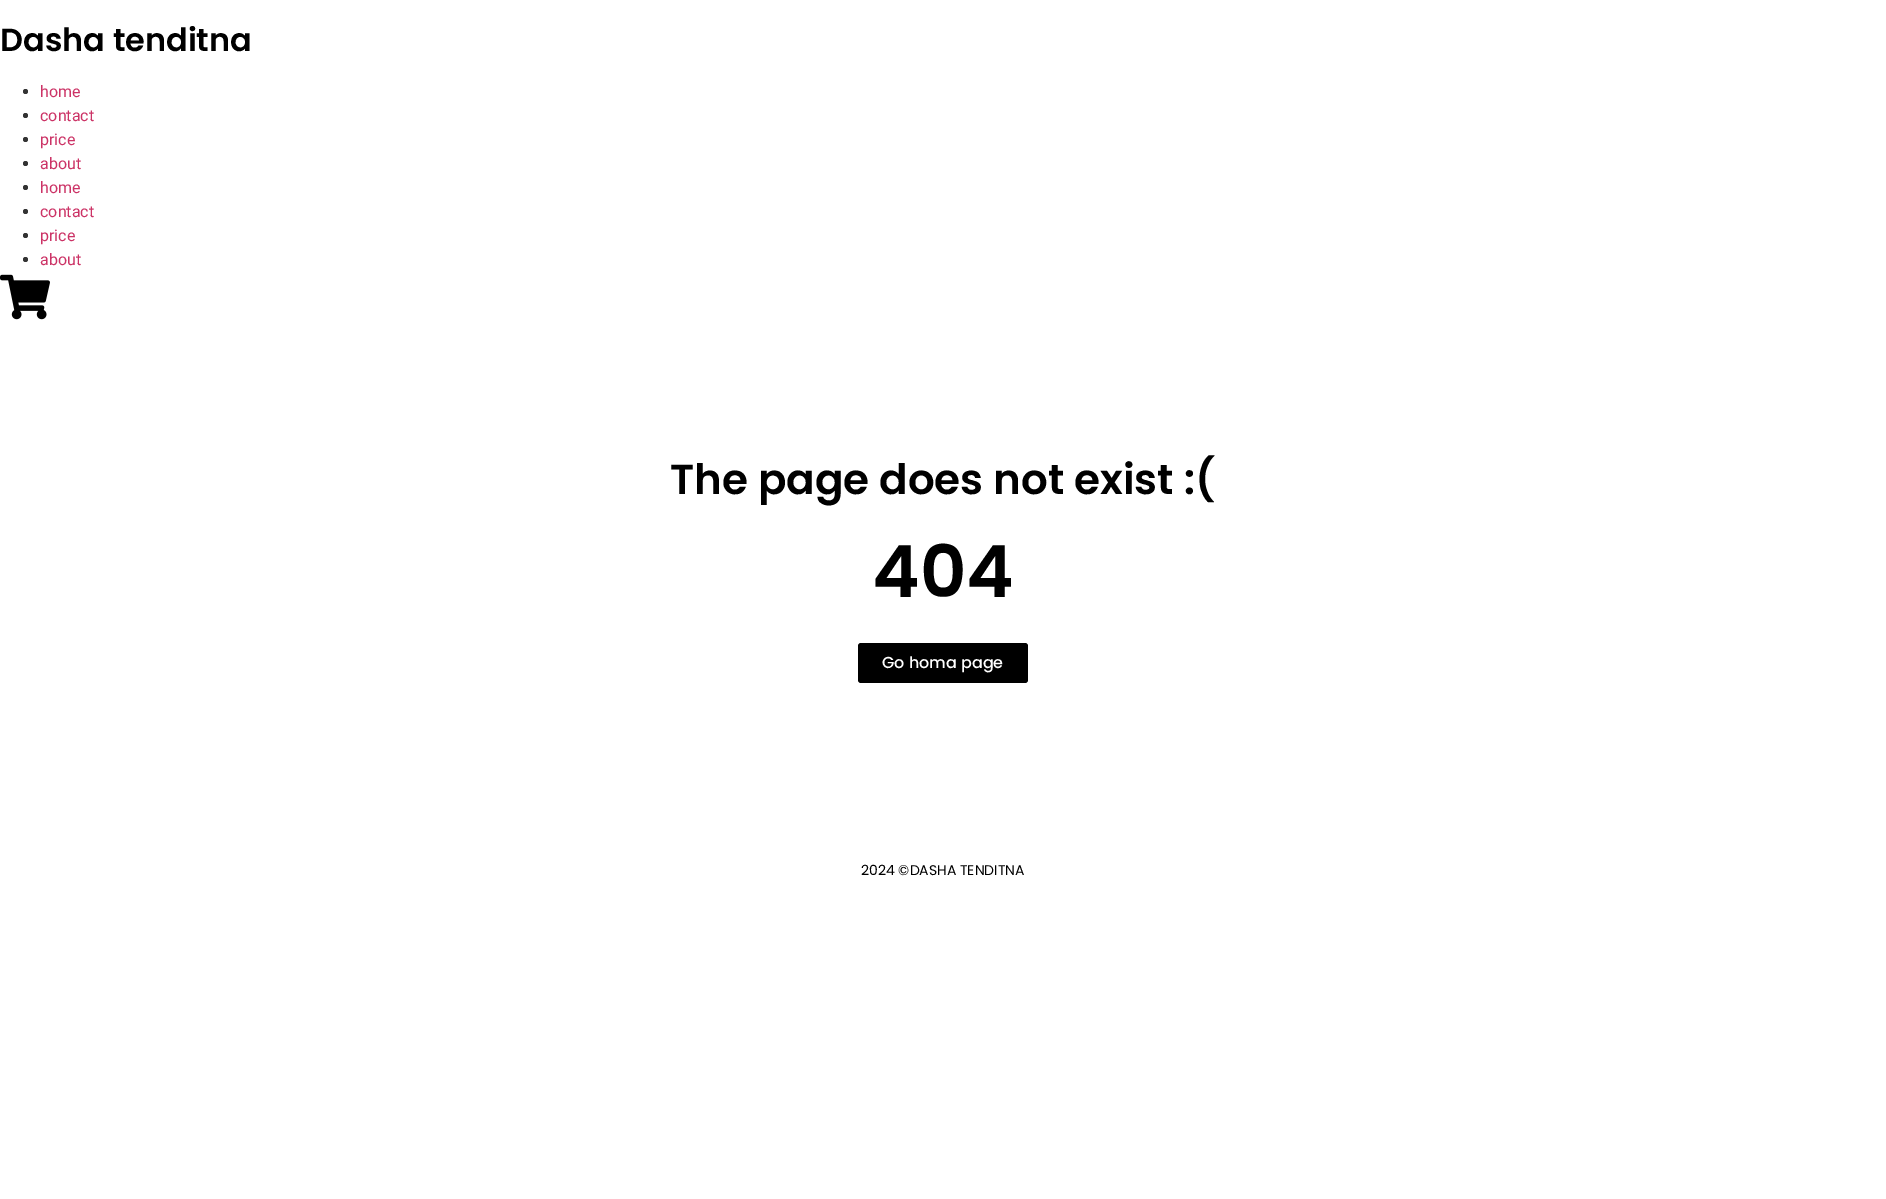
%!PS-Adobe-3.0
%%BoundingBox: 0 0 1886 1199
%%LanguageLevel: 3
%%Pages: 1
%%EndComments
%%BeginProlog
/f { fill } bind def
/fn { [ exch dup neg 0 0 3 -1 roll 0 0 ] selectfont } def
/tx { moveto show } def
/bx { rectfill } def
/ci { newpath 0 360 arc closepath } def
/rr { 5 dict begin { /r /h /w /y /x } { exch def } forall
  x r add y moveto x w add y 2 copy h add r arct x w add y h add x 1 index r arct
  x y h add x y r arct x y 2 copy exch w add exch r arct closepath end } def
/im { 5 dict begin { /h /w /y /x /name } { exch def } forall
  gsave x y translate w h scale
  w h 8 [w 0 0 h 0 0] name (r) file false 3 colorimage grestore end } def
%%EndProlog
%%BeginSetup
<< /PageSize [1886 1199] >> setpagedevice
%%EndSetup
%%Page: 1 1
0 1199 translate 1 -1 scale
4 setmiterlimit
1 setgray
0 0 1886 1199 bx
/Poppins-SemiBold 32 fn
0 setgray
(Dasha tenditna) 0 51 tx
0.2 setgray
25.5 91.5 2.5 ci f
/Roboto-Regular 16 fn
0.8 0.2 0.4 setrgbcolor
(home) 40 97 tx
0.2 setgray
25.5 115.5 2.5 ci f
0.8 0.2 0.4 setrgbcolor
(contact) 40 121 tx
0.2 setgray
25.5 139.5 2.5 ci f
0.8 0.2 0.4 setrgbcolor
(price) 40 145 tx
0.2 setgray
25.5 163.5 2.5 ci f
0.8 0.2 0.4 setrgbcolor
(about) 40 169 tx
0.2 setgray
25.5 187.5 2.5 ci f
0.8 0.2 0.4 setrgbcolor
(home) 40 193 tx
0.2 setgray
25.5 211.5 2.5 ci f
0.8 0.2 0.4 setrgbcolor
(contact) 40 217 tx
0.2 setgray
25.5 235.5 2.5 ci f
0.8 0.2 0.4 setrgbcolor
(price) 40 241 tx
0.2 setgray
25.5 259.5 2.5 ci f
0.8 0.2 0.4 setrgbcolor
(about) 40 265 tx
(image0.raw) 0 274 50 46 im
/Poppins-SemiBold 42 fn
0 setgray
(The page does not exist :\() 670 494 tx
/Poppins-SemiBold 72 fn
(404) 872 597 tx
858 643 170 40 3 rr f
/Poppins-Medium 16 fn
1 setgray
(Go homa page) 882 668 tx
/Poppins-Regular 14 fn
0 setgray
(2024 ©DASHA TENDITNA) 861 875 tx
showpage
%%EOF
